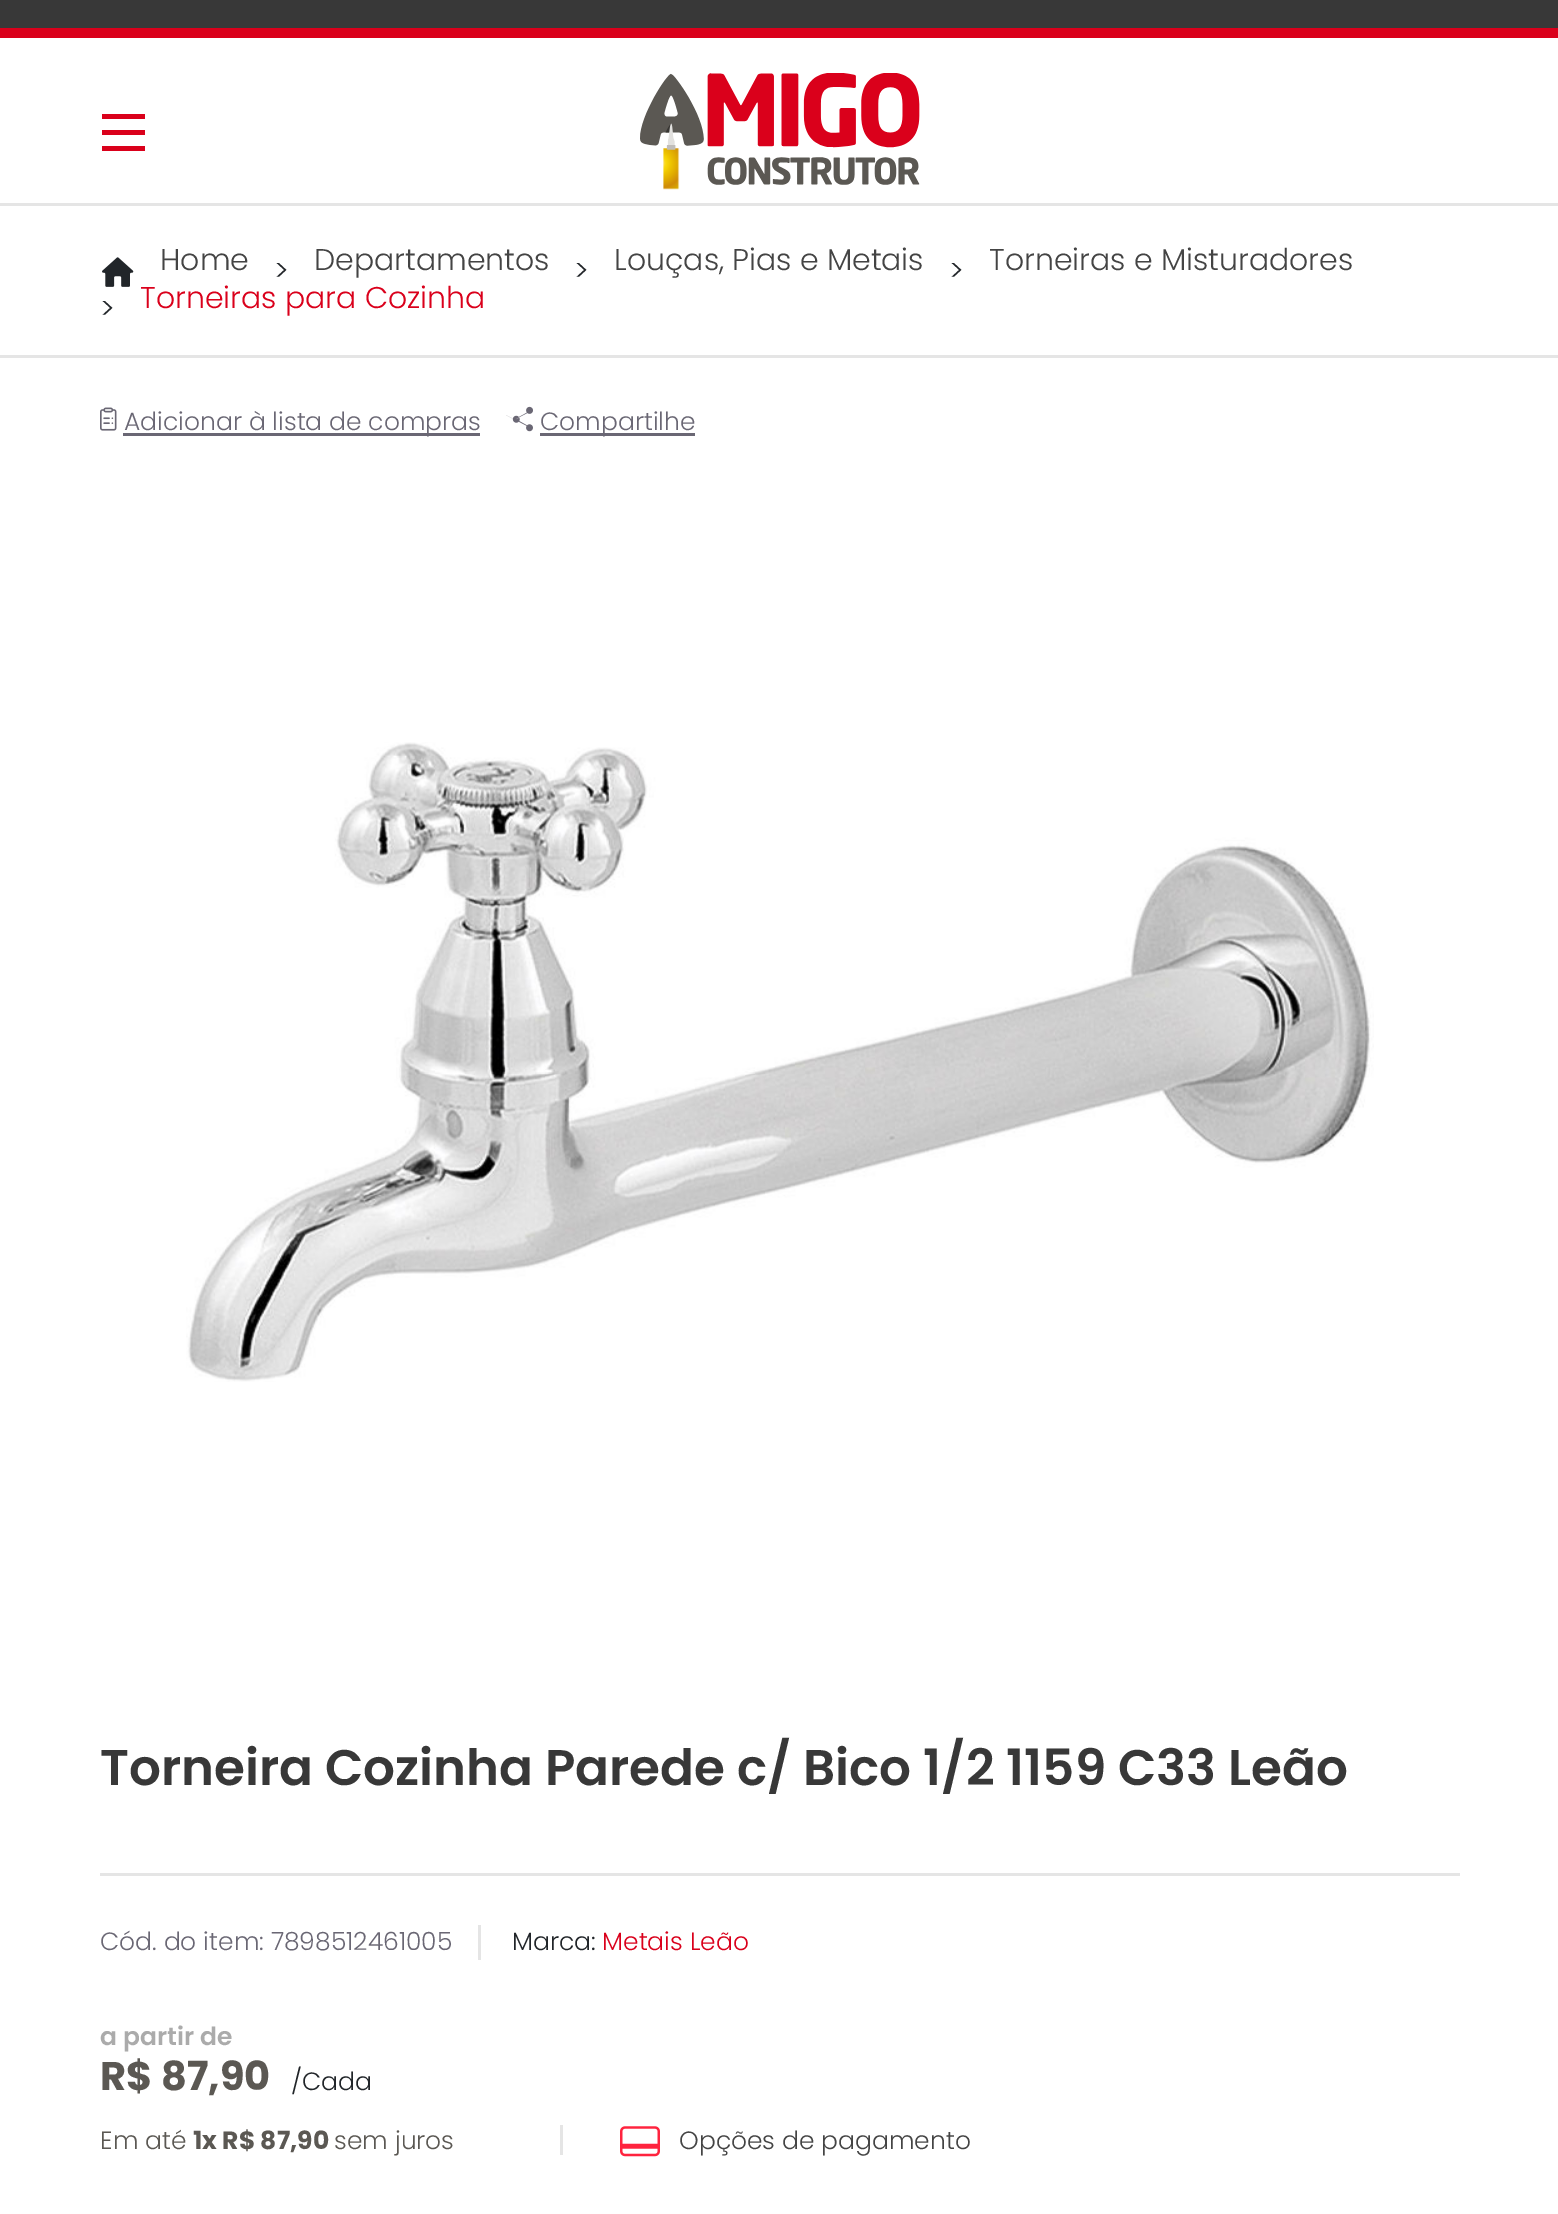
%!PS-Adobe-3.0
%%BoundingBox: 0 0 1558 2214
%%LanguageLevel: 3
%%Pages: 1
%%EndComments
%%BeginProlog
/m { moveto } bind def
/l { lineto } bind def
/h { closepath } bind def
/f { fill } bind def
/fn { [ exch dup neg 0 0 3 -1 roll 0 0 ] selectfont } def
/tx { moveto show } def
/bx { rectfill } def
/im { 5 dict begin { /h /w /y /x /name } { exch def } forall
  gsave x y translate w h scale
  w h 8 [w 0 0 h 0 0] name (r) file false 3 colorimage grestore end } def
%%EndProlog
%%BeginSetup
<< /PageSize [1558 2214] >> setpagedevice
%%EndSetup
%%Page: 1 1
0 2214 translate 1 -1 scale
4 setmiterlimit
1 setgray
0 0 1558 2214 bx
0.22 setgray
0 0 1558 28 bx
0.855 0 0.106 setrgbcolor
0 28 1558 10 bx
145 151 m 102 151 l 102 146 l 145 146 l h 145 135 m 102 135 l 102 130 l 145 130 l h 145 119 m 102 119 l 102 114 l 145 114 l h f
(image0.raw) 640 73 280 117 im
0.898 setgray
0 203 1558 3 bx
0 355 1558 3 bx
(image1.raw) 102 257 32 30 im
/Poppins-Light 30 fn
0.267 setgray
(Home) 160 270 tx
0.129 0.145 0.161 setrgbcolor
(>) 274 281 tx
0.267 setgray
(Departamentos) 314 270 tx
0.129 0.145 0.161 setrgbcolor
(>) 574 281 tx
0.267 setgray
(Louças, Pias e Metais) 614 270 tx
0.129 0.145 0.161 setrgbcolor
(>) 949 281 tx
0.267 setgray
(Torneiras e Misturadores) 989 270 tx
0.129 0.145 0.161 setrgbcolor
(>) 100 319 tx
0.855 0 0.106 setrgbcolor
(Torneiras para Cozinha) 140 308 tx
(image2.raw) 100 407 17 24 im
0.416 0.404 0.455 setrgbcolor
123 433 357 3 bx
/Poppins-Light 25 fn
(Adicionar à lista de compras) 124 430 tx
(image3.raw) 506 406 27 26 im
540 433 155 3 bx
(Compartilhe) 540 430 tx
(image4.raw) 186 742 1188 640 im
0.898 setgray
100 1873 1360 3 bx
/Poppins-SemiBold 50 fn
0.22 setgray
(Torneira Cozinha Parede c/ Bico 1/2 1159 C33 Leão) 100 1785 tx
0.898 setgray
478 1925 3 35 bx
/Poppins-Light 25 fn
0.416 0.404 0.455 setrgbcolor
(Cód. do item: 7898512461005) 100 1950 tx
0.129 0.145 0.161 setrgbcolor
(Marca:) 512 1950 tx
0.855 0 0.106 setrgbcolor
(Metais Leão) 602 1950 tx
/Poppins-SemiBold 25 fn
0.671 setgray
(a partir de) 100 2045 tx
/Poppins-Bold 40 fn
0.357 0.345 0.325 setrgbcolor
(R$ 87,90) 100 2090 tx
/Poppins-Light 25 fn
0.129 0.145 0.161 setrgbcolor
(/Cada) 291 2090 tx
0.898 setgray
560 2125 3 30 bx
0.357 0.345 0.325 setrgbcolor
(Em até) 100 2149 tx
/Poppins-Bold 25 fn
(1x R$ 87,90) 193 2149 tx
/Poppins-Light 25 fn
(sem juros) 334 2149 tx
(image5.raw) 620 2126 40 31 im
0.267 setgray
(Opções de pagamento) 679 2149 tx
showpage
%%EOF
